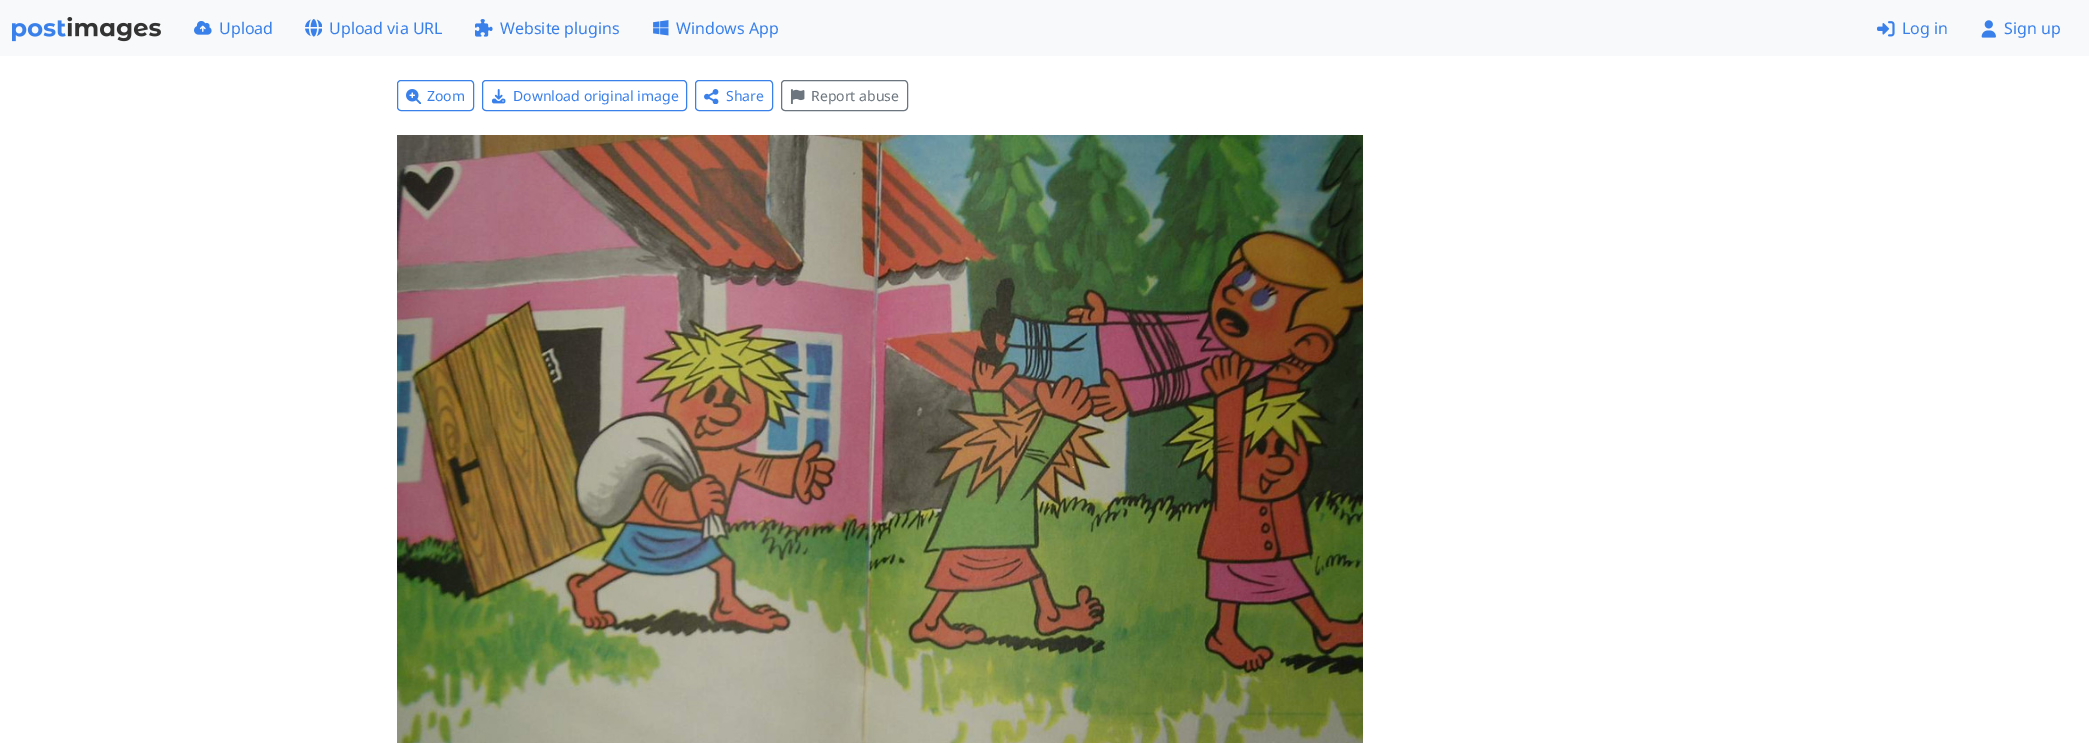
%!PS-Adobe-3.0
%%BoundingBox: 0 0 2089 743
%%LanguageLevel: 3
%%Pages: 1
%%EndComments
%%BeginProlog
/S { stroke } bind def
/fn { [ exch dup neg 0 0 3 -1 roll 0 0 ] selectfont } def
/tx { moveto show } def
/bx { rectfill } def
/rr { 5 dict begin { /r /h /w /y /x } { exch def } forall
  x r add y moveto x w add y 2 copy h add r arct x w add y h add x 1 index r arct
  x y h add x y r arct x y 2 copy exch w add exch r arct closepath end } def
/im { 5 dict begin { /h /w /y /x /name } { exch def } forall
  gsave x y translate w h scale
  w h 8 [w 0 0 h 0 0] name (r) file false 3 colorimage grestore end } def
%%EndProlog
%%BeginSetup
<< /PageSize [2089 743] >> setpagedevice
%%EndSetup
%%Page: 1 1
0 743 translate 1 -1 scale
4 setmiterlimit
1 setgray
0 0 2089 743 bx
0.973 0.976 0.98 setrgbcolor
0 0 2089 56 bx
(image0.raw) 12 17 149 25 im
(image1.raw) 194 21 18 14 im
/NotoSans-Regular 16 fn
0.227 0.502 0.918 setrgbcolor
(Upload) 219 34 tx
(image2.raw) 305 19 17 18 im
(Upload via URL) 329 34 tx
(image3.raw) 475 19 18 18 im
(Website plugins) 500 34 tx
(image4.raw) 653 20 16 16 im
(Windows App) 676 34 tx
(image5.raw) 1877 21 18 16 im
(Log in) 1902 34 tx
(image6.raw) 1981 20 15 18 im
(Sign up) 2004 34 tx
397.5 80.5 76 30 3.5 rr S
(image7.raw) 406 89 15 15 im
/NotoSans-Regular 14 fn
(Zoom) 427 101 tx
482.5 80.5 204 30 3.5 rr S
(image8.raw) 491 89 15 15 im
(Download original image) 513 101 tx
695.5 80.5 77 30 3.5 rr S
(image9.raw) 704 89 15 15 im
(Share) 726 101 tx
0.424 0.459 0.49 setrgbcolor
781.5 80.5 126 30 3.5 rr S
(image10.raw) 790 89 15 15 im
(Report abuse) 811 101 tx
(image11.raw) 397 135 966 608 im
showpage
%%EOF
